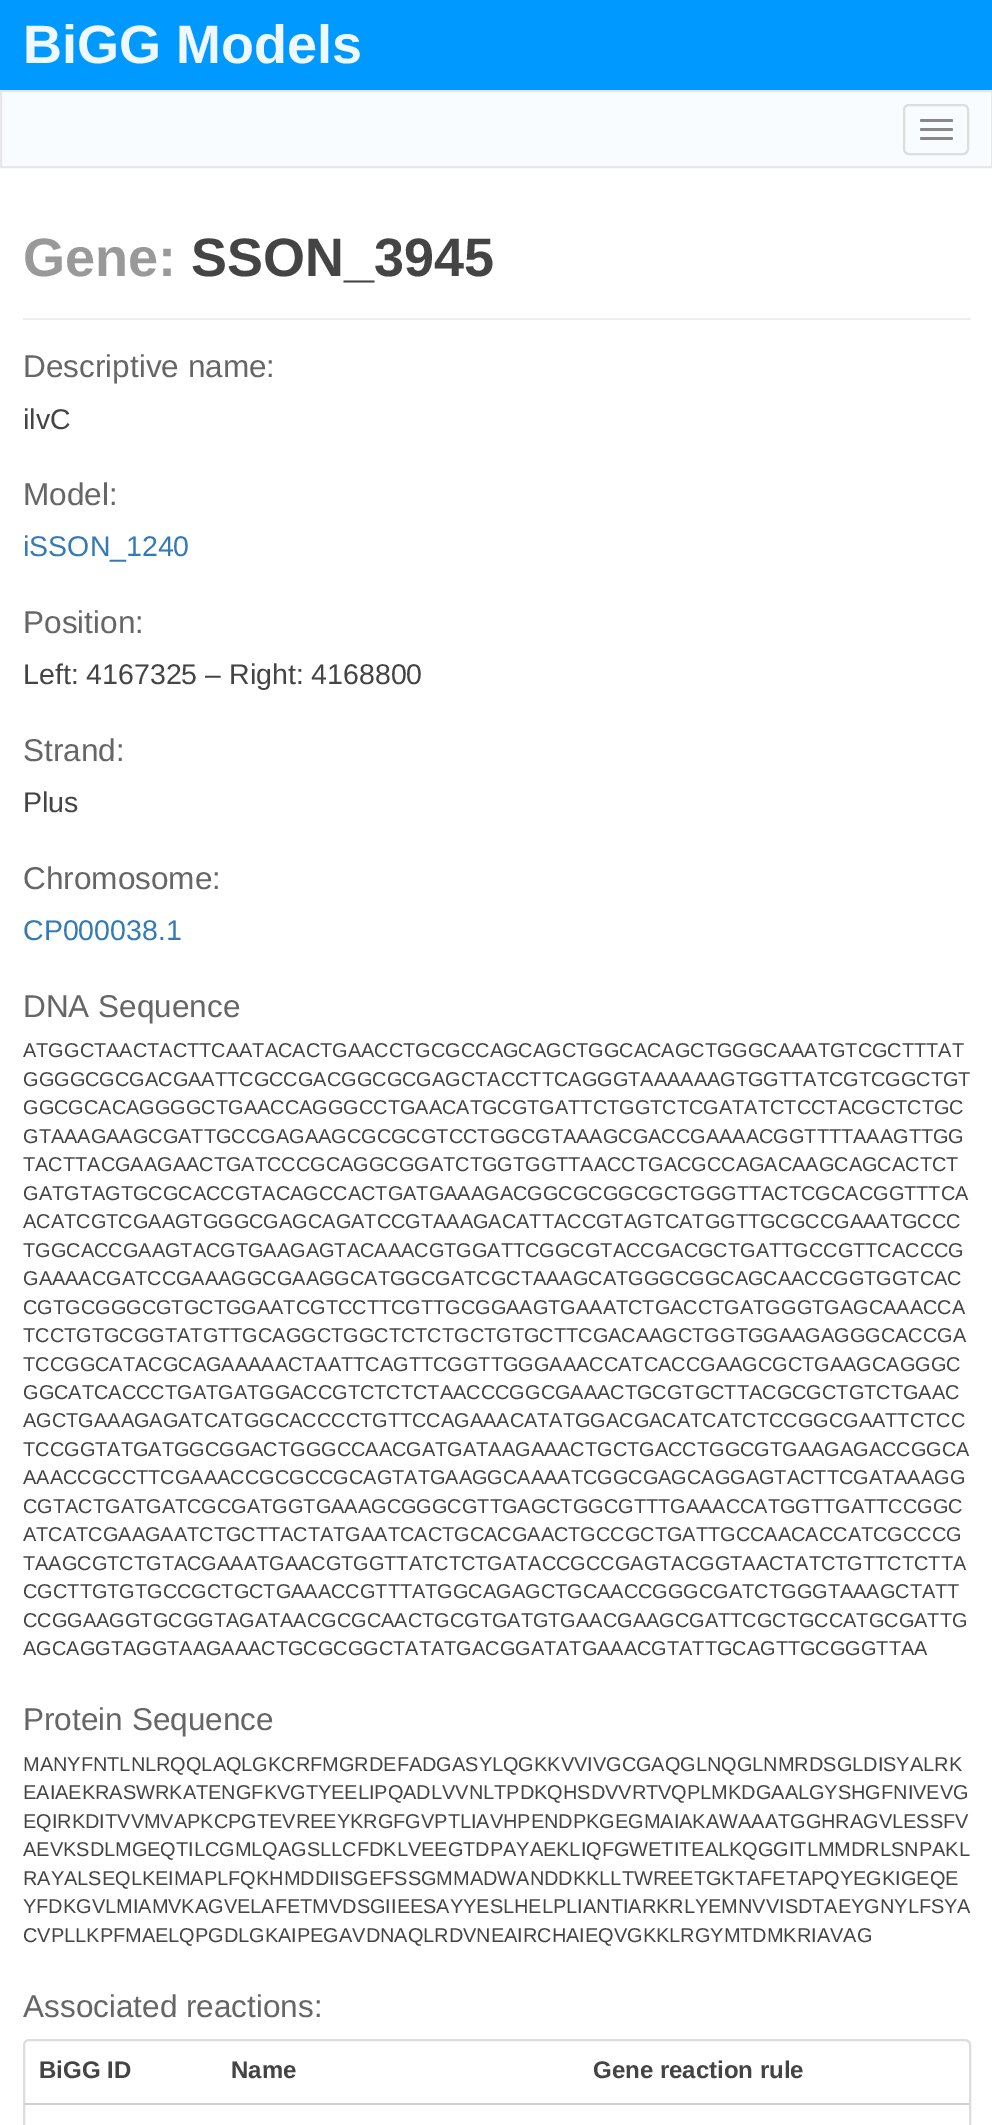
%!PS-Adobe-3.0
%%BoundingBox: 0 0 992 2125
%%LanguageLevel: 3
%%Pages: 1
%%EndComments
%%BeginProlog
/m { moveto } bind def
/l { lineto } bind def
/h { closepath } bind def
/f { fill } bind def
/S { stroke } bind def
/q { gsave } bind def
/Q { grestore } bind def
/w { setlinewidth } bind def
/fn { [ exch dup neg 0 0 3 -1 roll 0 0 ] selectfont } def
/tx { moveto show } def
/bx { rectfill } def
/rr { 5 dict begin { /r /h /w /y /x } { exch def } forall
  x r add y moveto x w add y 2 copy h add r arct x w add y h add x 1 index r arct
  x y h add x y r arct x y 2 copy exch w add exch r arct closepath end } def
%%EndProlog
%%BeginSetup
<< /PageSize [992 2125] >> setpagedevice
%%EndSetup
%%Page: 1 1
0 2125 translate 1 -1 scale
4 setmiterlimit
1 setgray
0 0 992 2125 bx
0 0.6 1 setrgbcolor
0 0 992 90 bx
/LiberationSans-Bold 54 fn
0.937 0.973 1 setrgbcolor
(BiGG Models) 23 63 tx
0.976 0.988 1 setrgbcolor
1 91 m 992 91 l 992 167 l 1 167 l h q f Q
0.906 setgray
2 w
S
0.867 setgray
904 105 64 49 5 rr S
0.533 setgray
920 119 33 3 1.5 rr f
920 128 33 3 1.5 rr f
920 137 33 3 1.5 rr f
0.6 setgray
(Gene:) 23 276 tx
0.267 setgray
(SSON_3945) 191 276 tx
0.933 setgray
23 318 948 2 bx
/LiberationSans-Regular 31.5 fn
0.4 setgray
(Descriptive name:) 23 377 tx
/LiberationSans-Regular 28.5 fn
0.267 setgray
(ilvC) 23 429 tx
/LiberationSans-Regular 31.5 fn
0.4 setgray
(Model:) 23 505 tx
/LiberationSans-Regular 28.5 fn
0.2 0.478 0.718 setrgbcolor
(iSSON_1240) 23 556 tx
/LiberationSans-Regular 31.5 fn
0.4 setgray
(Position:) 23 633 tx
/LiberationSans-Regular 28.5 fn
0.267 setgray
(Left: 4167325 – Right: 4168800) 23 684 tx
/LiberationSans-Regular 31.5 fn
0.4 setgray
(Strand:) 23 761 tx
/LiberationSans-Regular 28.5 fn
0.267 setgray
(Plus) 23 812 tx
/LiberationSans-Regular 31.5 fn
0.4 setgray
(Chromosome:) 23 889 tx
/LiberationSans-Regular 28.5 fn
0.2 0.478 0.718 setrgbcolor
(CP000038.1) 23 940 tx
/LiberationSans-Regular 31.5 fn
0.4 setgray
(DNA Sequence) 23 1017 tx
/LiberationSans-Regular 19.95 fn
0.267 setgray
(ATGGCTAACTACTTCAATACACTGAACCTGCGCCAGCAGCTGGCACAGCTGGGCAAATGTCGCTTTAT) 23 1057 tx
(GGGGCGCGACGAATTCGCCGACGGCGCGAGCTACCTTCAGGGTAAAAAAGTGGTTATCGTCGGCTGT) 23 1086 tx
(GGCGCACAGGGGCTGAACCAGGGCCTGAACATGCGTGATTCTGGTCTCGATATCTCCTACGCTCTGC) 23 1114 tx
(GTAAAGAAGCGATTGCCGAGAAGCGCGCGTCCTGGCGTAAAGCGACCGAAAACGGTTTTAAAGTTGG) 23 1143 tx
(TACTTACGAAGAACTGATCCCGCAGGCGGATCTGGTGGTTAACCTGACGCCAGACAAGCAGCACTCT) 23 1171 tx
(GATGTAGTGCGCACCGTACAGCCACTGATGAAAGACGGCGCGGCGCTGGGTTACTCGCACGGTTTCA) 23 1200 tx
(ACATCGTCGAAGTGGGCGAGCAGATCCGTAAAGACATTACCGTAGTCATGGTTGCGCCGAAATGCCC) 23 1228 tx
(TGGCACCGAAGTACGTGAAGAGTACAAACGTGGATTCGGCGTACCGACGCTGATTGCCGTTCACCCG) 23 1257 tx
(GAAAACGATCCGAAAGGCGAAGGCATGGCGATCGCTAAAGCATGGGCGGCAGCAACCGGTGGTCAC) 23 1285 tx
(CGTGCGGGCGTGCTGGAATCGTCCTTCGTTGCGGAAGTGAAATCTGACCTGATGGGTGAGCAAACCA) 23 1314 tx
(TCCTGTGCGGTATGTTGCAGGCTGGCTCTCTGCTGTGCTTCGACAAGCTGGTGGAAGAGGGCACCGA) 23 1342 tx
(TCCGGCATACGCAGAAAAACTAATTCAGTTCGGTTGGGAAACCATCACCGAAGCGCTGAAGCAGGGC) 23 1371 tx
(GGCATCACCCTGATGATGGACCGTCTCTCTAACCCGGCGAAACTGCGTGCTTACGCGCTGTCTGAAC) 23 1399 tx
(AGCTGAAAGAGATCATGGCACCCCTGTTCCAGAAACATATGGACGACATCATCTCCGGCGAATTCTCC) 23 1427 tx
(TCCGGTATGATGGCGGACTGGGCCAACGATGATAAGAAACTGCTGACCTGGCGTGAAGAGACCGGCA) 23 1456 tx
(AAACCGCCTTCGAAACCGCGCCGCAGTATGAAGGCAAAATCGGCGAGCAGGAGTACTTCGATAAAGG) 23 1484 tx
(CGTACTGATGATCGCGATGGTGAAAGCGGGCGTTGAGCTGGCGTTTGAAACCATGGTTGATTCCGGC) 23 1513 tx
(ATCATCGAAGAATCTGCTTACTATGAATCACTGCACGAACTGCCGCTGATTGCCAACACCATCGCCCG) 23 1541 tx
(TAAGCGTCTGTACGAAATGAACGTGGTTATCTCTGATACCGCCGAGTACGGTAACTATCTGTTCTCTTA) 23 1570 tx
(CGCTTGTGTGCCGCTGCTGAAACCGTTTATGGCAGAGCTGCAACCGGGCGATCTGGGTAAAGCTATT) 23 1598 tx
(CCGGAAGGTGCGGTAGATAACGCGCAACTGCGTGATGTGAACGAAGCGATTCGCTGCCATGCGATTG) 23 1627 tx
(AGCAGGTAGGTAAGAAACTGCGCGGCTATATGACGGATATGAAACGTATTGCAGTTGCGGGTTAA) 23 1655 tx
/LiberationSans-Regular 31.5 fn
0.4 setgray
(Protein Sequence) 23 1730 tx
/LiberationSans-Regular 19.95 fn
0.267 setgray
(MANYFNTLNLRQQLAQLGKCRFMGRDEFADGASYLQGKKVVIVGCGAQGLNQGLNMRDSGLDISYALRK) 23 1771 tx
(EAIAEKRASWRKATENGFKVGTYEELIPQADLVVNLTPDKQHSDVVRTVQPLMKDGAALGYSHGFNIVEVG) 23 1799 tx
(EQIRKDITVVMVAPKCPGTEVREEYKRGFGVPTLIAVHPENDPKGEGMAIAKAWAAATGGHRAGVLESSFV) 23 1828 tx
(AEVKSDLMGEQTILCGMLQAGSLLCFDKLVEEGTDPAYAEKLIQFGWETITEALKQGGITLMMDRLSNPAKL) 23 1856 tx
(RAYALSEQLKEIMAPLFQKHMDDIISGEFSSGMMADWANDDKKLLTWREETGKTAFETAPQYEGKIGEQE) 23 1885 tx
(YFDKGVLMIAMVKAGVELAFETMVDSGIIEESAYYESLHELPLIANTIARKRLYEMNVVISDTAEYGNYLFSYA) 23 1913 tx
(CVPLLKPFMAELQPGDLGKAIPEGAVDNAQLRDVNEAIRCHAIEQVGKKLRGYMTDMKRIAVAG) 23 1942 tx
/LiberationSans-Regular 31.5 fn
0.4 setgray
(Associated reactions:) 23 2017 tx
0.867 setgray
24 2040 946 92 5 rr S
0.82 setgray
24 2103 945 2 bx
/LiberationSans-Bold 24 fn
0.267 setgray
(BiGG ID) 39 2078 tx
(Name) 231 2078 tx
(Gene reaction rule) 593 2078 tx
showpage
%%EOF
